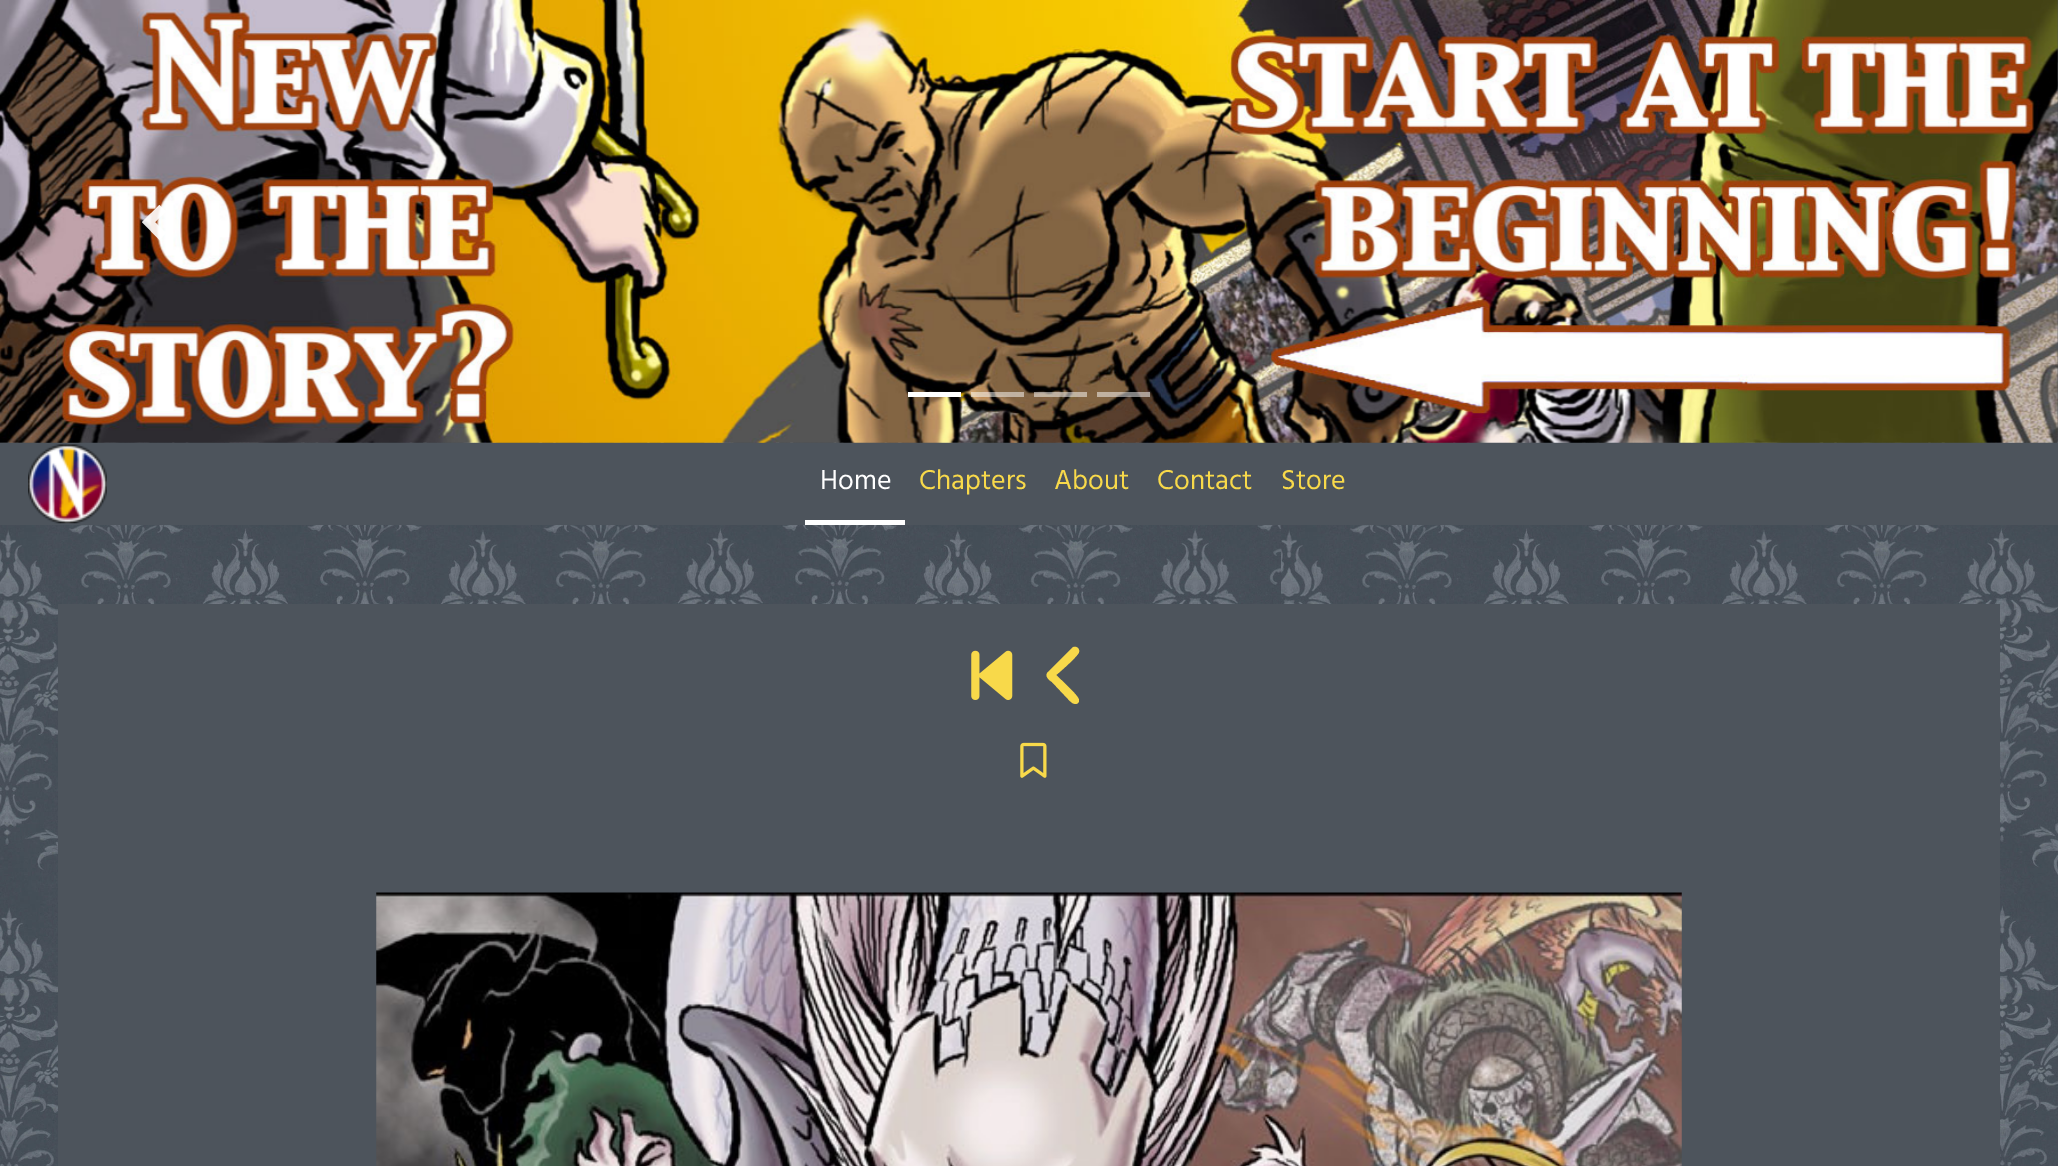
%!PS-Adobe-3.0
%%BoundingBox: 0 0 2058 1166
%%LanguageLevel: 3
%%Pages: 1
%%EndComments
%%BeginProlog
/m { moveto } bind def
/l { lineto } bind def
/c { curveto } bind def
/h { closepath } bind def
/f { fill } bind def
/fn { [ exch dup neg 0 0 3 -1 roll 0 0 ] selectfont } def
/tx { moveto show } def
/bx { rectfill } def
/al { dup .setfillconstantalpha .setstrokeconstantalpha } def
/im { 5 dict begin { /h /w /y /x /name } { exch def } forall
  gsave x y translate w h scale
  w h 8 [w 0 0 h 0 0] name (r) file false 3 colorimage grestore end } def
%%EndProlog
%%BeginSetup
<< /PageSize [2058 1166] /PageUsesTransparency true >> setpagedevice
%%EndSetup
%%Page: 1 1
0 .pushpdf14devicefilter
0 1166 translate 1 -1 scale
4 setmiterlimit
1 setgray
0 0 2058 1166 bx
(image0.raw) 0 0 2058 1166 im
(image1.raw) 0 0 2058 443 im
0.9 al
159.5 205 m 142 222 l 159.5 240 l 166 233 l 155 222 l 166 211.5 l h f
0.5 al
1898.5 205 m 1892 211.5 l 1903 222 l 1892 233 l 1898.5 240 l 1916 222 l h f
1 al
908 392 53 5 bx
0.5 al
971 392 53 5 bx
1034 392 53 5 bx
1097 392 53 5 bx
1 al
0.302 0.329 0.361 setrgbcolor
0 443 2058 82 bx
(image2.raw) 28 444 79 80 im
1 setgray
805 520 100 5 bx
/Hind-Regular 28 fn
(Home) 820 489 tx
0.973 0.851 0.29 setrgbcolor
(Chapters) 919 489 tx
(About) 1054 489 tx
(Contact) 1157 489 tx
(Store) 1281 489 tx
0.302 0.329 0.361 setrgbcolor
58 604 1942 562 bx
(image3.raw) 971 650 42 50 im
0.973 0.851 0.29 setrgbcolor
1048 672 m 1044 676 1049 680 1052 682 c 1068 699 l 1070 701 1074 706 1078 703 c 1079 702 1079 701 1079 700 c 1079 696 1060 679 1056 675 c 1060 672 1079 655 1079 652 c 1080 648 1075 645 1072 648 c h f
(image4.raw) 1020 742 27 36 im
(image5.raw) 376 892 1306 274 im
.poppdf14devicefilter showpage
%%EOF
